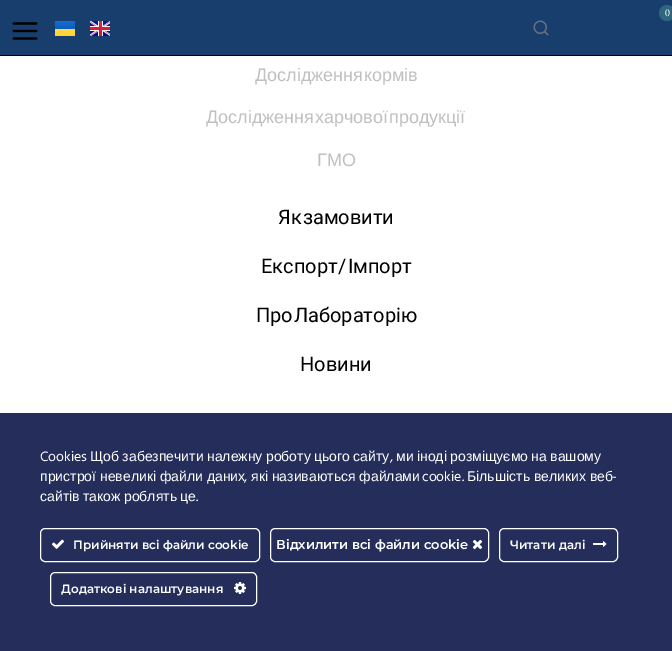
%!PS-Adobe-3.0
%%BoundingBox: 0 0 672 651
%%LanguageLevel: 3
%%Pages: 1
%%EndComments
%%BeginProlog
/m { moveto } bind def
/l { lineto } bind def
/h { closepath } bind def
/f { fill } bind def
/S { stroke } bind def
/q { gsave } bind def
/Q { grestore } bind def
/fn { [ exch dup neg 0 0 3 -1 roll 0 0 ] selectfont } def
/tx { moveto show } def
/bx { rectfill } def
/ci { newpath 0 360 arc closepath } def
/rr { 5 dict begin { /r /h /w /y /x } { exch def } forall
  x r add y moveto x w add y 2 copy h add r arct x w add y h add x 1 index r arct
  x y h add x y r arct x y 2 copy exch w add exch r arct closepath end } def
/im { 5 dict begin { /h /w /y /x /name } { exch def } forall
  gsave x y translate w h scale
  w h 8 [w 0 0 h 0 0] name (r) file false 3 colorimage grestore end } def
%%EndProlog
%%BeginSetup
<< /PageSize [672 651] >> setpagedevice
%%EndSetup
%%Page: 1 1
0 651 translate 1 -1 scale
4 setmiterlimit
1 setgray
0 0 672 651 bx
0.094 0.243 0.427 setrgbcolor
0 0 672 55 bx
0 setgray
0 55 672 1 bx
0.184 0.4 0.498 setrgbcolor
667 13 8 ci f
/LiberationSerif-Regular 10 fn
1 setgray
(0) 665 16 tx
(image0.raw) 533 20 16 16 im
(image1.raw) 12 22 26 18 im
q 55 21 m 75 21 l 75 29 l 55 29 l h clip newpath
<< /ShadingType 2 /ColorSpace /DeviceRGB /Coords [66 21 66 29] /Extend [true true] /Function << /FunctionType 2 /Domain [0 1] /C0 [0.082 0.427 0.82] /C1 [0.051 0.369 0.725] /N 1 >> >> shfill Q
q 55 29 m 75 29 l 75 36 l 55 36 l h clip newpath
<< /ShadingType 2 /ColorSpace /DeviceRGB /Coords [66 29 66 36] /Extend [true true] /Function << /FunctionType 2 /Domain [0 1] /C0 [1 0.851 0.282] /C1 [1 0.831 0.188] /N 1 >> >> shfill Q
(image2.raw) 90 21 20 15 im
/LiberationSans-Regular 18 fn
0.753 setgray
255 81 m -4 0 32 (Дослідження кормів) widthshow
206 123 m -4 0 32 (Дослідження харчової продукції) widthshow
(ГМО) 317 166 tx
/Roboto-Regular 20 fn
0 setgray
278 224 m -4 0 32 (Як замовити) widthshow
261 273 m -4 0 32 (Експорт / Імпорт) widthshow
256 322 m -4 0 32 (Про Лабораторію) widthshow
(Новини) 300 371 tx
0.145 0.18 0.357 setrgbcolor
0 413 672 238 bx
/Hind-Regular 14 fn
1 setgray
(Cookies) 40 461 tx
/LiberationSans-Regular 14 fn
90 461 m -0.5 0 32 (Щоб забезпечити належну роботу цього сайту) widthshow
/Hind-Regular 14 fn
(,) 390 461 tx
/LiberationSans-Regular 14 fn
396 461 m -0.5 0 32 (ми іноді розміщуємо на вашому) widthshow
(пристрої невеликі файли даних) 40 481 tx
(які називаються файлами) 251 481 tx
/Hind-Regular 14 fn
(cookie.) 422 481 tx
/LiberationSans-Regular 14 fn
(Більшість великих веб) 467 481 tx
/Hind-Regular 14 fn
(-) 612 481 tx
(,) 244 481 tx
/LiberationSans-Regular 14 fn
40 501 m -0.5 0 32 (сайтів також роблять це) widthshow
/Hind-Regular 14 fn
(.) 196 501 tx
40.5 528.5 219 33 4.5 rr S
(image3.raw) 52 539 12 10 im
/Montserrat-SemiBold 12 fn
(Прийняти всі файли cookie) 73 549 tx
270.5 528.5 218 33 4.5 rr S
/Montserrat-SemiBold 13 fn
(Відхилити всі файли cookie) 276 549 tx
(image4.raw) 472 539 11 11 im
499.5 528.5 118 33 4.5 rr S
/Montserrat-SemiBold 12 fn
(Читати далі) 510 549 tx
(image5.raw) 593 541 14 6 im
50.5 572.5 206 33 4.5 rr S
(Додаткові налаштування) 61 593 tx
(image6.raw) 234 582 12 12 im
showpage
%%EOF
